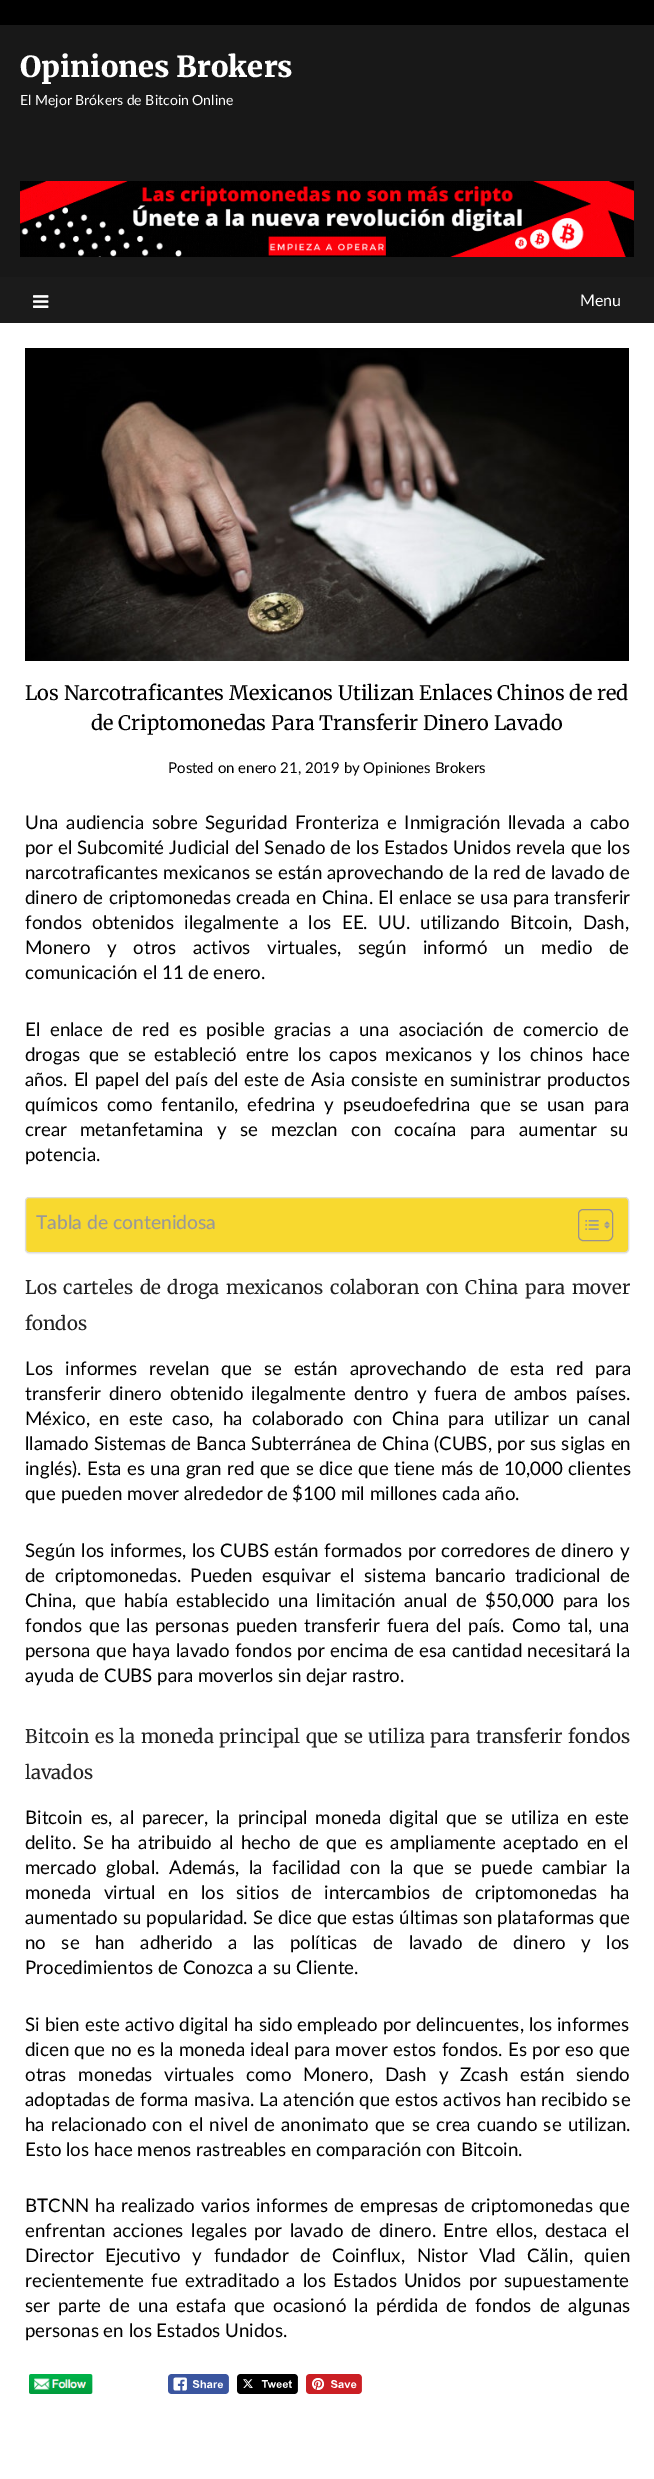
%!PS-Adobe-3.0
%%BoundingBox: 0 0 654 2479
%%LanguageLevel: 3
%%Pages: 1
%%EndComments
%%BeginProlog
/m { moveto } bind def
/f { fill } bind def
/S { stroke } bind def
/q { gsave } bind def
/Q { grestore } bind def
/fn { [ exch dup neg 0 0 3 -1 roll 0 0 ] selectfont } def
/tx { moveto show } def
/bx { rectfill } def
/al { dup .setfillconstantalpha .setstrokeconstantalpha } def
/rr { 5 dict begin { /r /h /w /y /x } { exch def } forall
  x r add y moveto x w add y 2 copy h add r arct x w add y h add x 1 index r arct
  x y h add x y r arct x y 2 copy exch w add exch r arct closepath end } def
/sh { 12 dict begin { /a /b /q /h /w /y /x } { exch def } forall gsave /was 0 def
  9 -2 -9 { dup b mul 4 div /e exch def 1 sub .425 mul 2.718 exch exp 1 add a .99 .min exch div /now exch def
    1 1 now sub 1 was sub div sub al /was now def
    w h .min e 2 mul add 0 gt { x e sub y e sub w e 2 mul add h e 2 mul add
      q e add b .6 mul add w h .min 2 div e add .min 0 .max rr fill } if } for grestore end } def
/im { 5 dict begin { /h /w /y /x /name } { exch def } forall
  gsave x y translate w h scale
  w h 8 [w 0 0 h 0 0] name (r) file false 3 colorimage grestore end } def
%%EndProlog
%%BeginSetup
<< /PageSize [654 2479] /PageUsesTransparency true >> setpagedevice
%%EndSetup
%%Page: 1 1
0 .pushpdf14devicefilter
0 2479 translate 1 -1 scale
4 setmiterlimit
0 setgray
0 0 654 2479 bx
0.094 setgray
0 25 654 252 bx
/Merriweather-Black 29 fn
1 setgray
(Opiniones Brokers) 20 77 tx
/Lato-Regular 14 fn
(El Mejor Brókers de Bitcoin Online) 20 105 tx
(image0.raw) 20 181 614 76 im
0.106 setgray
0 277 654 46 bx
(image1.raw) 33 295 16 13 im
/Lato-Regular 16 fn
1 setgray
(Menu) 580 306 tx
0 323 654 2156 bx
(image2.raw) 25 348 604 313 im
/Merriweather-Regular 20 fn
0 setgray
(Los Narcotraficantes Mexicanos Utilizan Enlaces Chinos de red) 25 700 tx
(de Criptomonedas Para Transferir Dinero Lavado) 91 730 tx
/Lato-Regular 15 fn
(Posted on enero 21, 2019 by Opiniones Brokers) 168 773 tx
/Lato-Regular 18.7 fn
25 829 m 3 0 32 (Una audiencia sobre Seguridad Fronteriza e Inmigración llevada a cabo) widthshow
25 854 m 0.25 0 32 (por el Subcomité Judicial del Senado de los Estados Unidos revela que los) widthshow
25 879 m 0.25 0 32 (narcotraficantes mexicanos se están aprovechando de la red de lavado de) widthshow
25 904 m 0.5 0 32 (dinero de criptomonedas creada en China. El enlace se usa para transferir) widthshow
25 929 m 5.5 0 32 (fondos obtenidos ilegalmente a los EE. UU. utilizando Bitcoin, Dash,) widthshow
25 954 m 11.75 0 32 (Monero y otros activos virtuales, según informó un medio de) widthshow
(comunicación el 11 de enero.) 25 979 tx
25 1036 m 4.75 0 32 (El enlace de red es posible gracias a una asociación de comercio de) widthshow
25 1061 m 3.75 0 32 (drogas que se estableció entre los capos mexicanos y los chinos hace) widthshow
25 1086 m 1 0 32 (años. El papel del país del este de Asia consiste en suministrar productos) widthshow
25 1111 m 4.25 0 32 (químicos como fentanilo, efedrina y pseudoefedrina que se usan para) widthshow
25 1136 m 8.5 0 32 (crear metanfetamina y se mezclan con cocaína para aumentar su) widthshow
(potencia.) 25 1161 tx
25 1198 604 56 4 0.5 0.05 sh
0.973 0.851 0.184 setrgbcolor
25.5 1197.5 603 55 3.5 rr q f Q
0.867 setgray
S
/Lato-Medium 19.25 fn
0.6 setgray
(Tabla de contenidosa) 36 1229 tx
0.6 0.569 0.569 setrgbcolor
578.5 1209.5 34 31 4.5 rr S
(image3.raw) 585 1220 14 10 im
(image4.raw) 604 1221 6 8 im
/Merriweather-Regular 18.7 fn
0.133 setgray
25 1294 m 2.25 0 32 (Los carteles de droga mexicanos colaboran con China para mover) widthshow
(fondos) 25 1330 tx
/Lato-Regular 18.7 fn
0 setgray
25 1375 m 7 0 32 (Los informes revelan que se están aprovechando de esta red para) widthshow
25 1400 m 3.25 0 32 (transferir dinero obtenido ilegalmente dentro y fuera de ambos países.) widthshow
25 1425 m 4.5 0 32 (México, en este caso, ha colaborado con China para utilizar un canal) widthshow
25 1450 m 0.25 0 32 (llamado Sistemas de Banca Subterránea de China \(CUBS, por sus siglas en) widthshow
25 1475 m 0.5 0 32 (inglés\). Esta es una gran red que se dice que tiene más de 10,000 clientes) widthshow
(que pueden mover alrededor de $100 mil millones cada año.) 25 1500 tx
25 1557 m 0.75 0 32 (Según los informes, los CUBS están formados por corredores de dinero y) widthshow
25 1582 m 4.5 0 32 (de criptomonedas. Pueden esquivar el sistema bancario tradicional de) widthshow
25 1607 m 3.6 0 32 (China, que había establecido una limitación anual de $50,000 para los) widthshow
25 1632 m 2.1 0 32 (fondos que las personas pueden transferir fuera del país. Como tal, una) widthshow
25 1657 m 0.5 0 32 (persona que haya lavado fondos por encima de esa cantidad necesitará la) widthshow
(ayuda de CUBS para moverlos sin dejar rastro.) 25 1682 tx
/Merriweather-Regular 18.7 fn
0.133 setgray
25 1743 m 1 0 32 (Bitcoin es la moneda principal que se utiliza para transferir fondos) widthshow
(lavados) 25 1779 tx
/Lato-Regular 18.7 fn
0 setgray
25 1824 m 3 0 32 (Bitcoin es, al parecer, la principal moneda digital que se utiliza en este) widthshow
25 1849 m 2.75 0 32 (delito. Se ha atribuido al hecho de que es ampliamente aceptado en el) widthshow
25 1874 m 4.9 0 32 (mercado global. Además, la facilidad con la que se puede cambiar la) widthshow
25 1899 m 7.75 0 32 (moneda virtual en los sitios de intercambios de criptomonedas ha) widthshow
25 1924 m 0.25 0 32 (aumentado su popularidad. Se dice que estas últimas son plataformas que) widthshow
25 1949 m 10.6 0 32 (no se han adherido a las políticas de lavado de dinero y los) widthshow
(Procedimientos de Conozca a su Cliente.) 25 1974 tx
25 2031 m 0.25 0 32 (Si bien este activo digital ha sido empleado por delincuentes, los informes) widthshow
25 2056 m 0.5 0 32 (dicen que no es la moneda ideal para mover estos fondos. Es por eso que) widthshow
25 2081 m 7 0 32 (otras monedas virtuales como Monero, Dash y Zcash están siendo) widthshow
25 2106 m 0.25 0 32 (adoptadas de forma masiva. La atención que estos activos han recibido se) widthshow
25 2131 m 1.5 0 32 (ha relacionado con el nivel de anonimato que se crea cuando se utilizan.) widthshow
(Esto los hace menos rastreables en comparación con Bitcoin.) 25 2156 tx
25 2212 m 1.25 0 32 (BTCNN ha realizado varios informes de empresas de criptomonedas que) widthshow
25 2237 m 2.75 0 32 (enfrentan acciones legales por lavado de dinero. Entre ellos, destaca el) widthshow
25 2262 m 6.75 0 32 (Director Ejecutivo y fundador de Coinflux, Nistor Vlad Călin, quien) widthshow
25 2287 m 2.25 0 32 (recientemente fue extraditado a los Estados Unidos por supuestamente) widthshow
25 2312 m 3.4 0 32 (ser parte de una estafa que ocasionó la pérdida de fondos de algunas) widthshow
(personas en los Estados Unidos.) 25 2337 tx
(image5.raw) 29 2374 64 20 im
(image6.raw) 168 2374 61 20 im
(image7.raw) 237 2374 61 20 im
(image8.raw) 306 2374 56 20 im
.poppdf14devicefilter showpage
%%EOF
